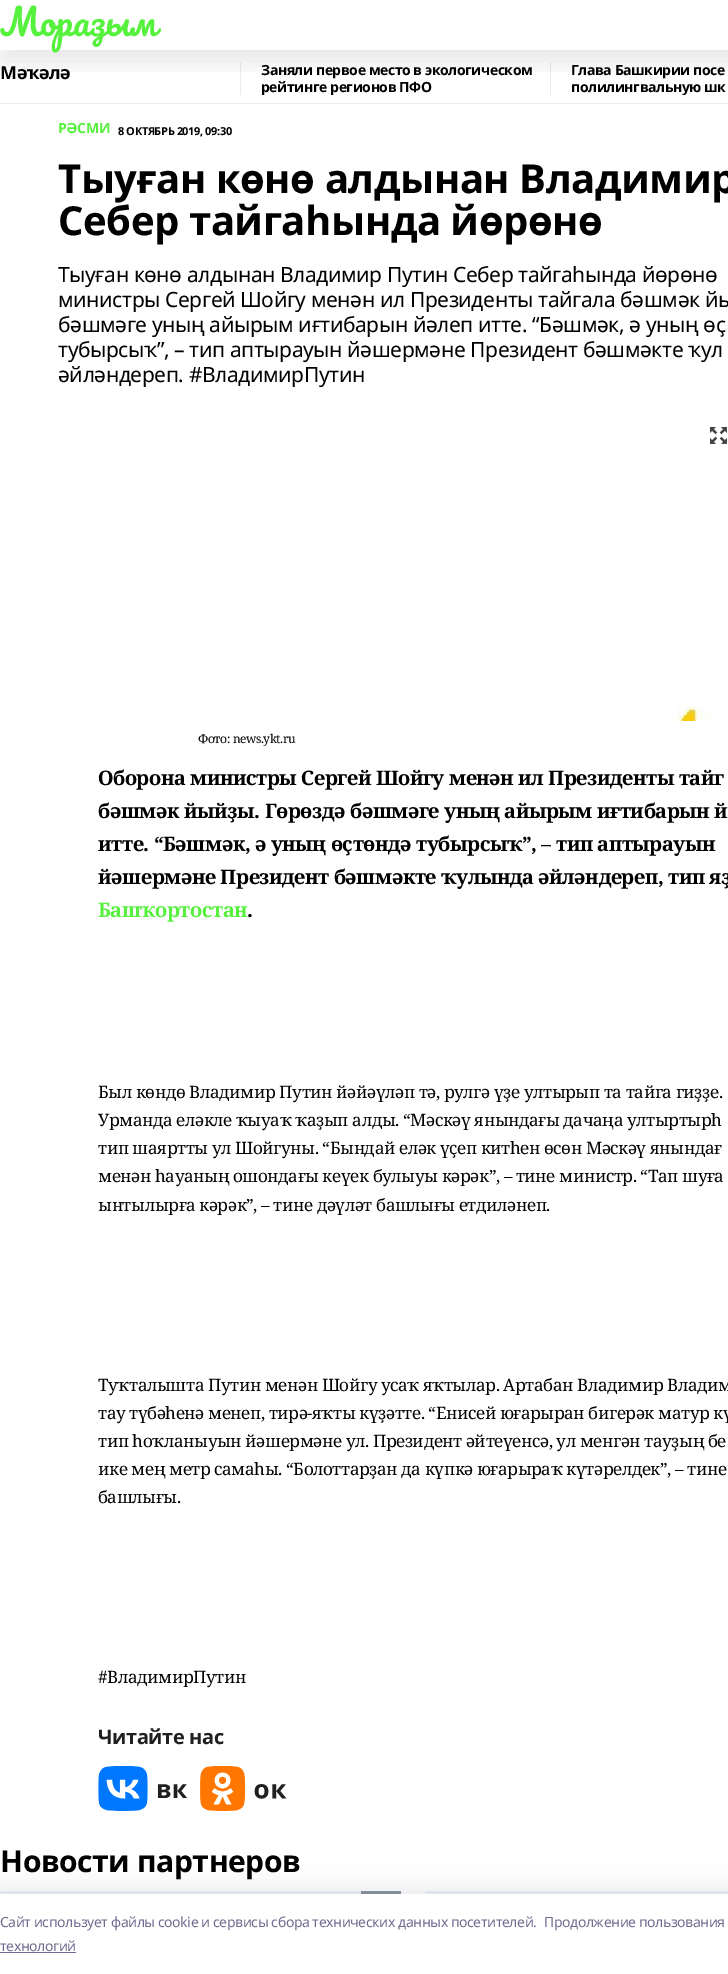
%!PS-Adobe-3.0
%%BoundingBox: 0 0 728 1974
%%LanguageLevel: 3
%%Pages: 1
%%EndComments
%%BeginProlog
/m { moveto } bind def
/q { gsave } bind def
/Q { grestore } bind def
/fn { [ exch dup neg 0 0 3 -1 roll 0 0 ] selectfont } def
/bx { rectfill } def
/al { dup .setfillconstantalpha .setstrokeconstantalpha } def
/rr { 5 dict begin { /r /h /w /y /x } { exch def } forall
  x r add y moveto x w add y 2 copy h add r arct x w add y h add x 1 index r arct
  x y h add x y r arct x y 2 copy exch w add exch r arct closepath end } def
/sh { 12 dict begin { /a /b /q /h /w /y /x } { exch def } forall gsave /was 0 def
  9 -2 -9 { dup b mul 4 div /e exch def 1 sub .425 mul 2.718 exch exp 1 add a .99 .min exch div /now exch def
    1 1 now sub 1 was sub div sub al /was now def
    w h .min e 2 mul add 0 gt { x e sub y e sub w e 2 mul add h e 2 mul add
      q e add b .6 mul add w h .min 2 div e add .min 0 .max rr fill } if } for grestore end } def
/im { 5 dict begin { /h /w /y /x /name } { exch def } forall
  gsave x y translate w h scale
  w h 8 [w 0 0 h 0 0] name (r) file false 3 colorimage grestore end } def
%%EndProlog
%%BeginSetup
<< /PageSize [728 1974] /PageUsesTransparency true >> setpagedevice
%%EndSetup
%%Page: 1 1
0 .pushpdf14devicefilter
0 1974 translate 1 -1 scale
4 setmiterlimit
1 setgray
0 0 728 1974 bx
0.918 setgray
240 62 1 33 bx
550 62 1 33 bx
q
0 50 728 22 rectclip
0 setgray
0 15 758 50 0 10 0.08 sh
Q
/Pacifico-Regular 36 fn
0.333 0.945 0.235 setrgbcolor
0 36 m -0.42 0 (Мораҙым) ashow
0.918 setgray
0 103 728 1 bx
/NotoSans-Bold 18 fn
0 setgray
0 79 m -0.42 0 (Мәҡәлә) ashow
/NotoSans-Bold 14 fn
261 75 m -0.42 0 (Заняли первое место в экологическом) ashow
q
241 62 309 33 rectclip
261 92 m -0.42 0 (рейтинге регионов ПФО) ashow
Q
571 75 m -0.42 0 (Глава Башкирии посе) ashow
q
551 62 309 33 rectclip
571 92 m -0.42 0 (полилингвальную шк) ashow
Q
0.333 0.945 0.235 setrgbcolor
58 133 m -0.42 0 (РӘСМИ) ashow
/NotoSans-Bold 11 fn
0 setgray
118 135 m -0.42 0 (8 ОКТЯБРЬ 2019, 09:30) ashow
/NotoSans-Bold 40 fn
58 193 m -0.42 0 (Тыуған көнө алдынан Владимир) ashow
58 235 m -0.42 0 (Себер тайгаһында йөрөнө) ashow
/NotoSans-Regular 21 fn
58 282 m -0.42 0 (Тыуған көнө алдынан Владимир Путин Себер тайгаһында йөрөнө) ashow
58 307 m -0.42 0 (министры Сергей Шойгу менән ил Президенты тайгала бәшмәк йы) ashow
58 332 m -0.42 0 (бәшмәге уның айырым иғтибарын йәлеп итте. “Бәшмәк, ә уның өҫ) ashow
58 357 m -0.42 0 (тубырсыҡ”, – тип аптырауын йәшермәне Президент бәшмәкте ҡул) ashow
58 382 m -0.42 0 (әйләндереп. #ВладимирПутин) ashow
(image0.raw) 198 419 530 302 im
(image1.raw) 710 427 17 17 im
/NotoSerif-Regular 12 fn
198 743 m -0.42 0 (Фото: news.ykt.ru) ashow
/NotoSerif-Bold 20 fn
98 785 m -0.42 0 (Оборона министры Сергей Шойгу менән ил Президенты тайг) ashow
98 818 m -0.42 0 (бәшмәк йыйҙы. Гөрөздә бәшмәге уның айырым иғтибарын й) ashow
98 851 m -0.42 0 (итте. “Бәшмәк, ә уның өҫтөндә тубырсыҡ”, – тип аптырауын) ashow
98 884 m -0.42 0 (йәшермәне Президент бәшмәкте ҡулында әйләндереп, тип яҙ) ashow
0.333 0.945 0.235 setrgbcolor
98 917 m -0.42 0 (Башҡортостан) ashow
0 setgray
247 917 m -0.42 0 (.) ashow
/NotoSerif-Regular 17 fn
98 1098 m -0.42 0 (Был көндө Владимир Путин йәйәүләп тә, рулгә үҙе ултырып та тайга гиҙҙе.) ashow
98 1126 m -0.42 0 (Урманда еләкле ҡыуаҡ ҡаҙып алды. “Мәскәү янындағы дачаңа ултыртырһ) ashow
98 1154 m -0.42 0 (тип шаяртты ул Шойгуны. “Бындай еләк үҫеп китһен өсөн Мәскәү янындағ) ashow
98 1182 m -0.42 0 (менән һауаның ошондағы кеүек булыуы кәрәк”, – тине министр. “Тап шуға) ashow
98 1211 m -0.42 0 (ынтылырға кәрәк”, – тине дәүләт башлығы етдиләнеп.) ashow
98 1391 m -0.42 0 (Туҡталышта Путин менән Шойгу усаҡ яҡтылар. Артабан Владимир Владим) ashow
98 1419 m -0.42 0 (тау түбәһенә менеп, тирә-яҡты күҙәтте. “Енисей юғарыран бигерәк матур кү) ashow
98 1447 m -0.42 0 (тип һоҡланыуын йәшермәне ул. Президент әйтеүенсә, ул менгән тауҙың бе) ashow
98 1475 m -0.42 0 (ике мең метр самаһы. “Болоттарҙан да күпкә юғарыраҡ күтәрелдек”, – тине) ashow
98 1503 m -0.42 0 (башлығы.) ashow
98 1683 m -0.42 0 (#ВладимирПутин) ashow
/NotoSans-Bold 20 fn
0.125 0.125 0.133 setrgbcolor
98 1744 m -0.42 0 (Читайте нас) ashow
(image2.raw) 98 1766 89 45 im
(image3.raw) 200 1766 87 45 im
/NotoSans-Bold 30 fn
0 setgray
0 1872 m -0.42 0 (Новости партнеров) ashow
0.533 0.58 0.635 setrgbcolor
361 1891 40 3 bx
0.929 0.949 0.969 setrgbcolor
0 1891 361 3 bx
425 1891 303 3 bx
0.078 0.078 0.169 setrgbcolor
0 1888 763 80 0 11.5 0.08 sh
1 setgray
0 1894 728 80 bx
/NotoSans-Regular 14 fn
0.435 0.424 0.565 setrgbcolor
0 1927 m -0.42 0 (Cайт использует файлы cookie и сервисы сбора технических данных посетителей.) ashow
544 1927 m -0.42 0 (Продолжение пользования) ashow
0 1951 m -0.42 0 (технологий) ashow
0 1952 76 1 bx
.poppdf14devicefilter showpage
%%EOF
